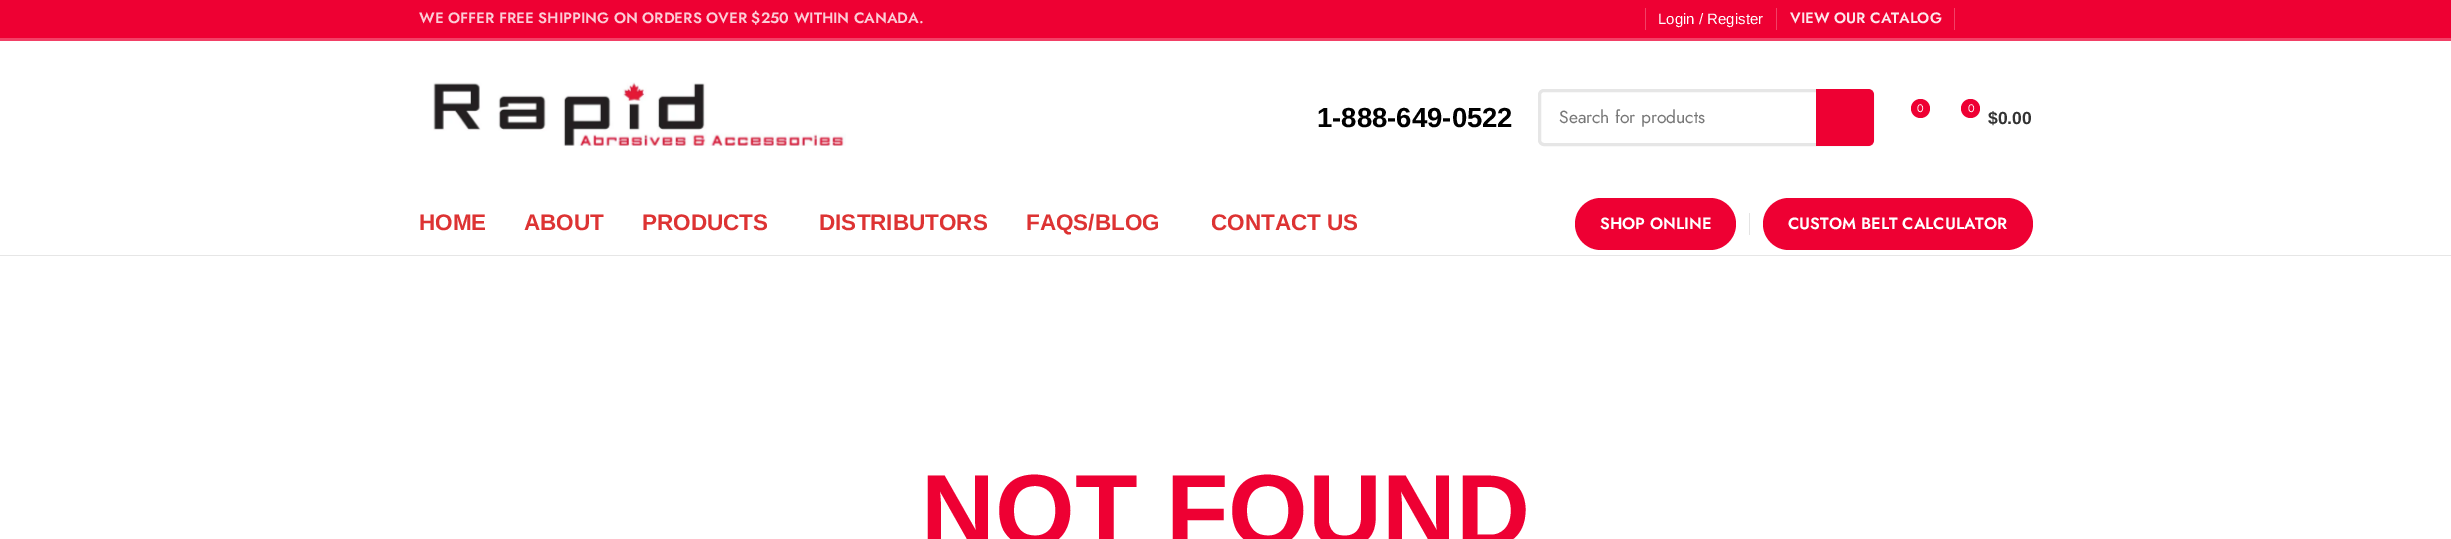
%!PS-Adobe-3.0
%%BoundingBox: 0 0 2451 539
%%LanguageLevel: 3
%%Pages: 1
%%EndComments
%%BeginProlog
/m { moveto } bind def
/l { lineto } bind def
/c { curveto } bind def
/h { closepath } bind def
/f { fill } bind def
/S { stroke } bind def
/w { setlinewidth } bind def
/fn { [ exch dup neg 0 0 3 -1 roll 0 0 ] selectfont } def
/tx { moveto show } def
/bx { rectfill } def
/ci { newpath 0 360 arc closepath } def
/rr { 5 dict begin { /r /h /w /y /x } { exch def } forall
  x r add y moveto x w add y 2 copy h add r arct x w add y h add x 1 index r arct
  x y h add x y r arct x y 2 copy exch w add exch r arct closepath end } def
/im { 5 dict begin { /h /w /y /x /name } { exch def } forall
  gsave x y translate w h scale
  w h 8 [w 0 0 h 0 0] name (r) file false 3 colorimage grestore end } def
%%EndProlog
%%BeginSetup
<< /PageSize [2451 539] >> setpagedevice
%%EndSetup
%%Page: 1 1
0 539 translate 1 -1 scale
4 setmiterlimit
1 setgray
0 0 2451 539 bx
0.933 0 0.2 setrgbcolor
0 0 2451 38 bx
0.949 0.251 0.4 setrgbcolor
0 38 2451 3 bx
/Jost-SemiBold 15 fn
0.988 0.8 0.839 setrgbcolor
(WE OFFER FREE SHIPPING ON ORDERS OVER $250 WITHIN CANADA.) 419 23 tx
0.949 0.251 0.4 setrgbcolor
1645 8 1 22 bx
/LiberationSans-Regular 15 fn
1 setgray
(Login / Register) 1658 24 tx
0.949 0.251 0.4 setrgbcolor
1776 8 1 22 bx
/Jost-SemiBold 15 fn
0.992 0.902 0.922 setrgbcolor
(VIEW OUR CATALOG) 1790 23 tx
0.949 0.251 0.4 setrgbcolor
1954 8 1 22 bx
(image0.raw) 433 82 413 64 im
/LiberationSans-Bold 27.5 fn
0 setgray
(1-888-649-0522) 1317 127 tx
0.902 setgray
3 w
1539.5 90.5 333 54 4.5 rr S
/Jost-Regular 17.5 fn
0.467 setgray
(Search for products) 1559 123 tx
0.933 0 0.2 setrgbcolor
1816 89 m 1868 89 l 1871.5 89 1874 91.5 1874 95 c 1874 140 l 1874 143.5 1871.5 146 1868 146 c 1816 146 l h f
1920.5 108.5 9.5 ci f
/Jost-Regular 11 fn
1 setgray
(0) 1917 112 tx
0.933 0 0.2 setrgbcolor
1970.5 108.5 9.5 ci f
1 setgray
(0) 1968 112 tx
/LiberationSans-Bold 17.5 fn
0.2 setgray
($0.00) 1988 124 tx
0.902 setgray
0 255 2451 1 bx
/LiberationSans-Bold 22.5 fn
0.867 0.2 0.2 setrgbcolor
(HOME) 419 230 tx
(ABOUT) 524 230 tx
(PRODUCTS) 642 230 tx
(DISTRIBUTORS) 819 230 tx
(FAQS/BLOG) 1026 230 tx
(CONTACT US) 1211 230 tx
0.933 0 0.2 setrgbcolor
1575 198 161 52 26 rr f
/Jost-SemiBold 16.25 fn
1 setgray
(SHOP ONLINE) 1600 229 tx
0.894 setgray
1749 213 1 22 bx
0.933 0 0.2 setrgbcolor
1763 198 270 52 26 rr f
1 setgray
(CUSTOM BELT CALCULATOR) 1788 229 tx
/LiberationSans-Bold 102.5 fn
0.933 0 0.2 setrgbcolor
(NOT FOUND) 921 546 tx
showpage
%%EOF
